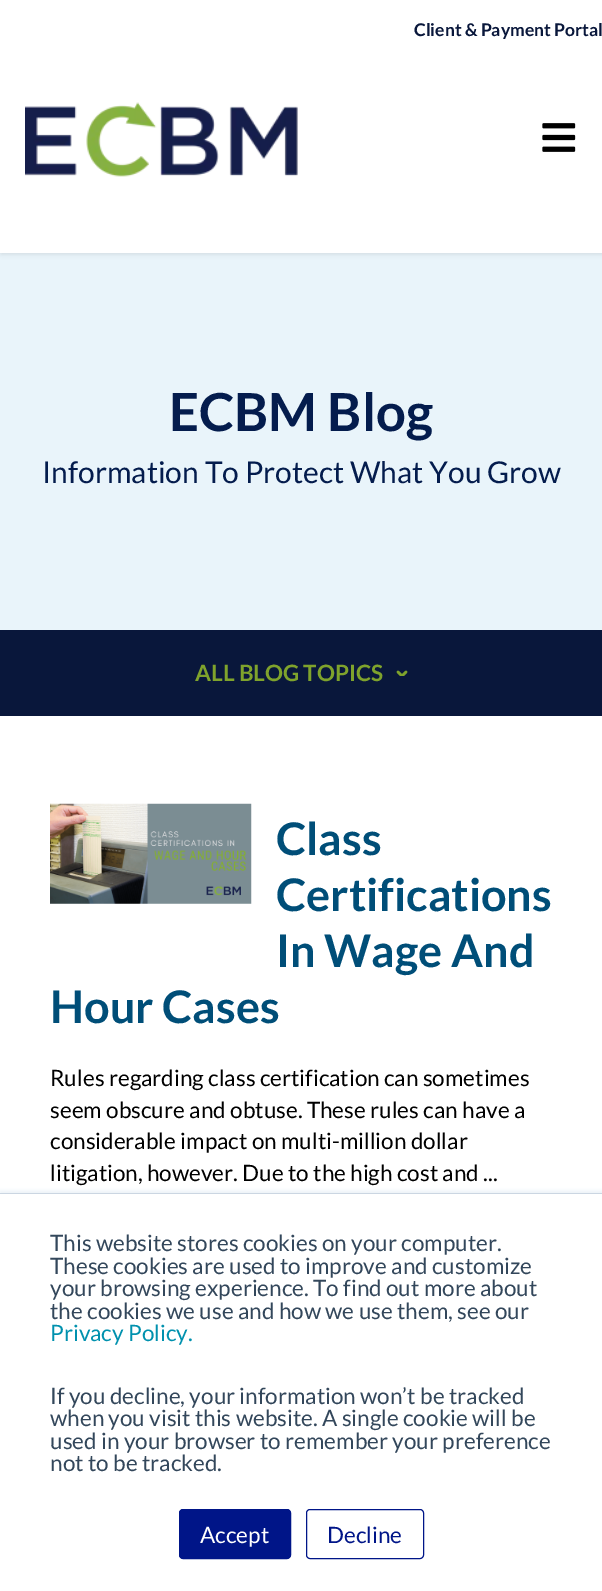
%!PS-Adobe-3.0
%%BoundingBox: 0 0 602 1591
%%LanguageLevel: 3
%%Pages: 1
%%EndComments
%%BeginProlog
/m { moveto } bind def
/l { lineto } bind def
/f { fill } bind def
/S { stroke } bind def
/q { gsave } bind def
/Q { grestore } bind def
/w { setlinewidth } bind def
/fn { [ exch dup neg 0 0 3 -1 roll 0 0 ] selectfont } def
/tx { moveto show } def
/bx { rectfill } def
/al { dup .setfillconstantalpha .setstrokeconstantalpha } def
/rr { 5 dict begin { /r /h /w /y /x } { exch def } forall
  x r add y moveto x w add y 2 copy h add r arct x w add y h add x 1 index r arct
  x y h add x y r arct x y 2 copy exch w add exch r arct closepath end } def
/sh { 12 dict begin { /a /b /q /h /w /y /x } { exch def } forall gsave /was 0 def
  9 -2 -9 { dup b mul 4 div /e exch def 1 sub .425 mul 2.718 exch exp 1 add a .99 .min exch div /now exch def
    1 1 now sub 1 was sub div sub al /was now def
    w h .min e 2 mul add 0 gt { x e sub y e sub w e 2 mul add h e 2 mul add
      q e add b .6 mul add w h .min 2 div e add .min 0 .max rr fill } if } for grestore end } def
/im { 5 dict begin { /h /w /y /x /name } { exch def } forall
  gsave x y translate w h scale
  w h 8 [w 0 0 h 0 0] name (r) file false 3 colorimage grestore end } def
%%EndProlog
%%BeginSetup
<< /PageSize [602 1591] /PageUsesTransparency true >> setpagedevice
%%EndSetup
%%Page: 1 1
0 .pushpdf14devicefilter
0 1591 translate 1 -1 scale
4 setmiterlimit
1 setgray
0 0 602 1591 bx
0.914 0.957 0.98 setrgbcolor
0 253 602 377 bx
0 setgray
1 1 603 253 0 2.5 0.1 sh
1 setgray
0 0 602 253 bx
/Lato-Bold 17.5 fn
0.035 0.09 0.231 setrgbcolor
(Client & Payment Portal) 414 36 tx
(image0.raw) 25 102 273 75 im
(image1.raw) 542 123 34 29 im
/Lato-Bold 52.5 fn
0.016 0.11 0.302 setrgbcolor
(ECBM Blog) 169 431 tx
/Lato-Regular 30 fn
(Information To Protect What You Grow) 42 483 tx
0.035 0.09 0.231 setrgbcolor
0 630 602 86 bx
/Lato-Bold 22.5 fn
0.498 0.639 0.173 setrgbcolor
(ALL BLOG TOPICS) 195 681 tx
q
396 670 12 6 rectclip
2.5 w
1 setlinecap
1 setlinejoin
398 672 m 402 676 l 406 672 l S
Q
(image2.raw) 50 803 202 101 im
/Lato-Bold 45 fn
0 0.306 0.471 setrgbcolor
(Class) 276 855 tx
(Certifications) 276 911 tx
(In Wage And) 276 967 tx
(Hour Cases) 50 1023 tx
/Lato-Regular 22.5 fn
0 setgray
(Rules regarding class certification can sometimes) 50 1086 tx
(seem obscure and obtuse. These rules can have a) 50 1118 tx
(considerable impact on multi-million dollar) 50 1149 tx
(litigation, however. Due to the high cost and ...) 50 1181 tx
0.918 0.941 0.965 setrgbcolor
0 1191 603 399 0 2 1 sh
1 setgray
0 1194 602 397 bx
0.796 0.839 0.886 setrgbcolor
0 1193 602 1 bx
0.2 0.278 0.357 setrgbcolor
(This website stores cookies on your computer.) 50 1251 tx
(These cookies are used to improve and customize) 50 1274 tx
(your browsing experience. To find out more about) 50 1296 tx
(the cookies we use and how we use them, see our) 50 1319 tx
0 0.569 0.682 setrgbcolor
(Privacy Policy.) 50 1341 tx
0.2 0.278 0.357 setrgbcolor
(If you decline, your information won’t be tracked) 50 1404 tx
(when you visit this website. A single cookie will be) 50 1426 tx
(used in your browser to remember your preference) 50 1449 tx
(not to be tracked.) 50 1471 tx
0 0.082 0.533 setrgbcolor
179.5 1509.5 111 49 3.5 rr q f Q
S
1 setgray
(Accept) 200 1543 tx
0 0.082 0.533 setrgbcolor
306.5 1509.5 117 49 3.5 rr S
(Decline) 327 1543 tx
.poppdf14devicefilter showpage
%%EOF
